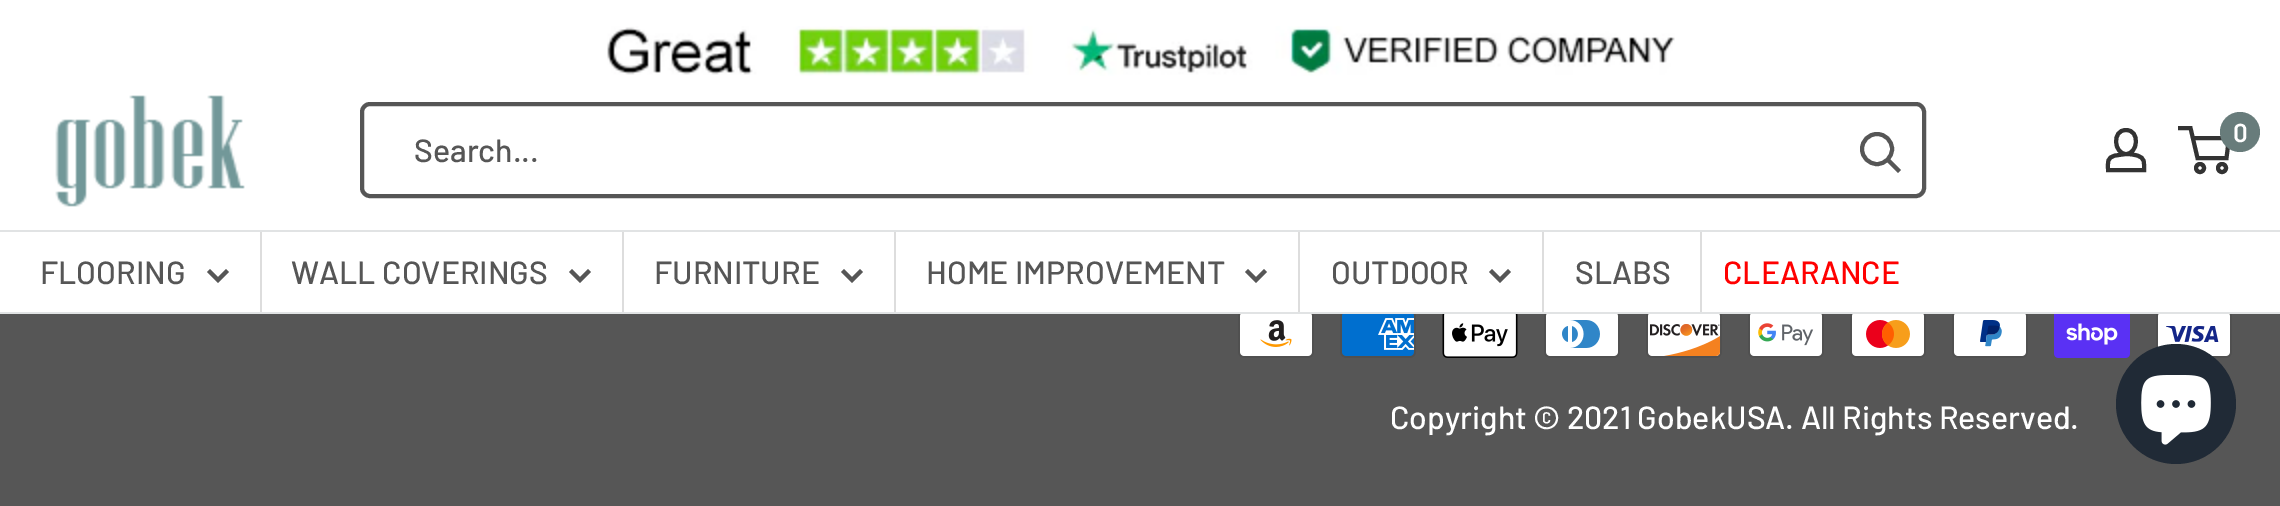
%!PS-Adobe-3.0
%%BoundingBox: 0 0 2280 506
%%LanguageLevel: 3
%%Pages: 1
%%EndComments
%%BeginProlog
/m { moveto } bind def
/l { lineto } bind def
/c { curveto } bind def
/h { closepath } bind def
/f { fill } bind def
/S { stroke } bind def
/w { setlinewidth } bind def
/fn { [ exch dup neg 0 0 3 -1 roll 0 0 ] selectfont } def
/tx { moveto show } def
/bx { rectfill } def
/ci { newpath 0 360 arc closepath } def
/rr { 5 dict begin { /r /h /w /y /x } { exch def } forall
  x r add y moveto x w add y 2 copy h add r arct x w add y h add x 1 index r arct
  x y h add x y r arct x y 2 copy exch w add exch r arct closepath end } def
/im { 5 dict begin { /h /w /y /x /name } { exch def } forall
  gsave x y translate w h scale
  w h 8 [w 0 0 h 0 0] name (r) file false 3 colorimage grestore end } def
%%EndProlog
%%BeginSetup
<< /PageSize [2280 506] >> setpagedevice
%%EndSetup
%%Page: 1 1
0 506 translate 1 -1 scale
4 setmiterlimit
0.337 setgray
0 0 2280 506 bx
0.882 0.89 0.894 setrgbcolor
0 312 2280 2 bx
1 setgray
0 0 2280 230 bx
(image0.raw) 607 26 1068 50 im
(image1.raw) 55 95 190 112 im
0.2 setgray
4 w
2126 154 m 2130 154 2133.5 154.5 2137 155.5 c 2145.5 158 2144 162.5 2144 170 c 2108 170 l 2108 162 2106.5 157.5 2115.5 155.5 c h 2126 154 m 2114 154 2111.5 130 2126 130 c 2140.5 130 2138 154 2126 154 c h S
2200 168 4 ci S
2222 168 4 ci S
2192.5 138 m 2229 138 l 2226.5 158 l 2197.5 158 l 2190.5 128 l 2178 128 l S
0.408 0.486 0.482 setrgbcolor
2240 132 20 ci f
/Barlow-SemiBold 26 fn
1 setgray
(0) 2233 142 tx
0.337 setgray
362 104 1562 92 8 rr S
/Barlow-Medium 32 fn
(Search...) 414 162 tx
2 setlinecap
1898 170 m 1888 160 l S
0 setlinecap
1877 149 15 ci S
1 setgray
0 232 2280 80 bx
0.882 0.89 0.894 setrgbcolor
0 230 2280 2 bx
0.867 setgray
260 232 2 80 bx
0.337 setgray
(FLOORING) 40 284 tx
2 setlinecap
226 272 m 218 280 l 210 272 l S
0.867 setgray
622 232 2 80 bx
0.337 setgray
(WALL COVERINGS) 291 284 tx
588 272 m 580 280 l 572 272 l S
0.867 setgray
894 232 2 80 bx
0.337 setgray
(FURNITURE) 654 284 tx
860 272 m 852 280 l 844 272 l S
0.867 setgray
1298 232 2 80 bx
0.337 setgray
(HOME IMPROVEMENT) 926 284 tx
1264 272 m 1256 280 l 1248 272 l S
0.867 setgray
1542 232 2 80 bx
0.337 setgray
(OUTDOOR) 1331 284 tx
1508 272 m 1500 280 l 1492 272 l S
0.867 setgray
1700 232 2 80 bx
0.337 setgray
(SLABS) 1575 284 tx
1 0 0 setrgbcolor
(CLEARANCE) 1723 284 tx
(image2.raw) 1238 314 76 44 im
(image3.raw) 1340 314 76 44 im
(image4.raw) 1442 314 76 44 im
(image5.raw) 1544 314 76 44 im
(image6.raw) 1646 314 76 44 im
(image7.raw) 1748 314 76 44 im
(image8.raw) 1850 314 76 44 im
(image9.raw) 1952 314 76 44 im
(image10.raw) 2054 314 76 44 im
(image11.raw) 2156 314 76 44 im
1 setgray
(Copyright © 2021 GobekUSA. All Rights Reserved.) 1390 429 tx
0.125 0.165 0.212 setrgbcolor
2176 404 60 ci f
(image12.raw) 2141 375 70 70 im
showpage
%%EOF
